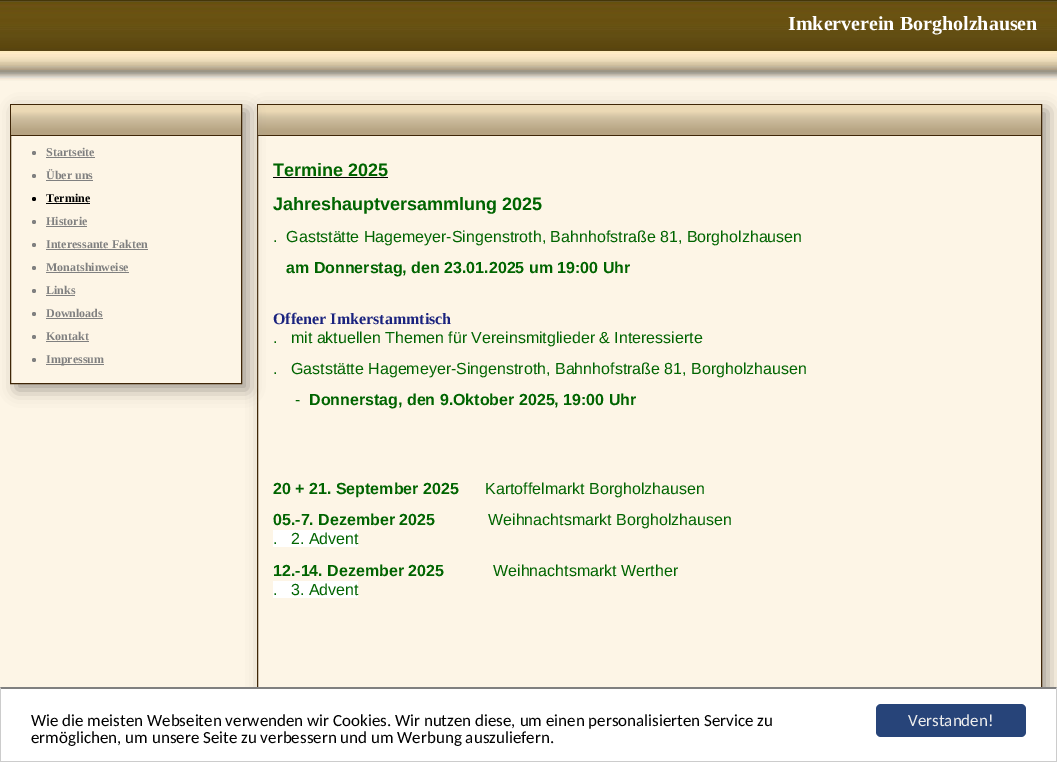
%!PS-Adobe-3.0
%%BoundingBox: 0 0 1057 762
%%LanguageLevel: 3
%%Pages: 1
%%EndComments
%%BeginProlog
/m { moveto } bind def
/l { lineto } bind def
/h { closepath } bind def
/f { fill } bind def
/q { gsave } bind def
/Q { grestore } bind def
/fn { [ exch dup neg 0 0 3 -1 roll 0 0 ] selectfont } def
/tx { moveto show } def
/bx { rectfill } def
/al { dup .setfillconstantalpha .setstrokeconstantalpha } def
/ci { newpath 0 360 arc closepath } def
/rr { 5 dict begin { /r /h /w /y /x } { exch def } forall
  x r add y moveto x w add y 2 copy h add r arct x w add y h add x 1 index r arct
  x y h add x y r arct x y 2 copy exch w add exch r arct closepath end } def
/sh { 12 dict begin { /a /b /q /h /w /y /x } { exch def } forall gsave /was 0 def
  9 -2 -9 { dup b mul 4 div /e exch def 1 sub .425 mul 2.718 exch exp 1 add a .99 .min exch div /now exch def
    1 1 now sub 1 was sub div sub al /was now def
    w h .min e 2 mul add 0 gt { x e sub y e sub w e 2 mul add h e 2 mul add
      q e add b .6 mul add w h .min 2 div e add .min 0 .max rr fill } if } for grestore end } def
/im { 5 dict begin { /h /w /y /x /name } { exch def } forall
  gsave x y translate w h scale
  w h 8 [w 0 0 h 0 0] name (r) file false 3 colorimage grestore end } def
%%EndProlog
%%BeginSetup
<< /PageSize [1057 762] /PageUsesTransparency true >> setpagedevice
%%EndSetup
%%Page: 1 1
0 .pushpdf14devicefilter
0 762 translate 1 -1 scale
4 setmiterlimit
0.992 0.961 0.902 setrgbcolor
0 0 1057 762 bx
(image0.raw) 0 0 1057 81 im
/LiberationSerif-Bold 20 fn
1 setgray
(Imkerverein Borgholzhausen) 788 30 tx
q
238 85 m 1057 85 l 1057 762 l 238 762 l h 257 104 m 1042 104 l 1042 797 l 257 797 l h eoclip newpath
0.631 0.604 0.573 setrgbcolor
263 110 785 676 0 8 1 sh
Q
0.247 0.149 0.027 setrgbcolor
257.5 104.5 784 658 rectstroke
q 258 105 m 1041 105 l 1041 135 l 258 135 l h clip newpath
<< /ShadingType 2 /ColorSpace /DeviceRGB /Coords [258 135 258 105] /Extend [true true] /Function << /FunctionType 3 /Domain [0 1] /Functions [<< /FunctionType 2 /Domain [0 1] /C0 [0.714 0.639 0.51] /C1 [0.714 0.639 0.51] /N 1 >> << /FunctionType 2 /Domain [0 1] /C0 [0.714 0.639 0.51] /C1 [0.812 0.753 0.631] /N 1 >> << /FunctionType 2 /Domain [0 1] /C0 [0.812 0.753 0.631] /C1 [0.922 0.851 0.71] /N 1 >> << /FunctionType 2 /Domain [0 1] /C0 [0.922 0.851 0.71] /C1 [0.922 0.851 0.71] /N 1 >>] /Bounds [0.13 0.57 0.79] /Encode [0 1 0 1 0 1 0 1] >> >> shfill Q
258 135 783 1 bx
q
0 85 m 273 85 l 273 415 l 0 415 l h 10 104 m 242 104 l 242 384 l 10 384 l h eoclip newpath
0.631 0.604 0.573 setrgbcolor
16 110 232 280 0 8 1 sh
Q
10.5 104.5 231 279 rectstroke
q 11 105 m 241 105 l 241 135 l 11 135 l h clip newpath
<< /ShadingType 2 /ColorSpace /DeviceRGB /Coords [11 135 11 105] /Extend [true true] /Function << /FunctionType 3 /Domain [0 1] /Functions [<< /FunctionType 2 /Domain [0 1] /C0 [0.714 0.639 0.51] /C1 [0.714 0.639 0.51] /N 1 >> << /FunctionType 2 /Domain [0 1] /C0 [0.714 0.639 0.51] /C1 [0.812 0.753 0.631] /N 1 >> << /FunctionType 2 /Domain [0 1] /C0 [0.812 0.753 0.631] /C1 [0.922 0.851 0.71] /N 1 >> << /FunctionType 2 /Domain [0 1] /C0 [0.922 0.851 0.71] /C1 [0.922 0.851 0.71] /N 1 >>] /Bounds [0.13 0.57 0.79] /Encode [0 1 0 1 0 1 0 1] >> >> shfill Q
11 135 230 1 bx
0.502 setgray
34 153 2 ci f
/LiberationSerif-Bold 12 fn
(Startseite) 46 156 tx
46 157 49 1 bx
34 176 2 ci f
(Über uns) 46 179 tx
46 180 47 1 bx
0 setgray
34 199 2 ci f
(Termine) 46 202 tx
46 203 44 1 bx
0.502 setgray
34 222 2 ci f
(Historie) 46 225 tx
46 226 41 1 bx
34 245 2 ci f
(Interessante Fakten) 46 248 tx
46 249 102 1 bx
34 268 2 ci f
(Monatshinweise) 46 271 tx
46 272 83 1 bx
34 291 2 ci f
(Links) 46 294 tx
46 295 29 1 bx
34 314 2 ci f
(Downloads) 46 317 tx
46 318 57 1 bx
34 337 2 ci f
(Kontakt) 46 340 tx
46 341 43 1 bx
34 360 2 ci f
46 364 58 1 bx
(Impressum) 46 363 tx
/LiberationSans-Bold 18 fn
0 0.392 0 setrgbcolor
(Termine 2025) 273 176 tx
0 setgray
273 177 115 1 bx
0 0.392 0 setrgbcolor
(Jahreshauptversammlung 2025) 273 210 tx
/LiberationSans-Regular 16 fn
(.  Gaststätte Hagemeyer-Singenstroth, Bahnhofstraße 81, Borgholzhausen) 273 242 tx
/LiberationSans-Bold 16 fn
(am Donnerstag, den 23.01.2025 um 19:00 Uhr) 286 273 tx
/LiberationSerif-Bold 16 fn
0.102 0.137 0.494 setrgbcolor
(Offener Imkerstammtisch) 273 324 tx
/LiberationSans-Regular 16 fn
0 0.392 0 setrgbcolor
(.   mit aktuellen Themen für Vereinsmitglieder & Interessierte) 273 343 tx
(.   Gaststätte Hagemeyer-Singenstroth, Bahnhofstraße 81, Borgholzhausen) 273 374 tx
(-) 295 405 tx
/LiberationSans-Bold 16 fn
(Donnerstag, den 9.Oktober 2025, 19:00 Uhr) 309 405 tx
(20 + 21. September 2025) 273 494 tx
/LiberationSans-Regular 16 fn
(Kartoffelmarkt Borgholzhausen) 485 494 tx
/LiberationSans-Bold 16 fn
(05.-7. Dezember 2025) 273 525 tx
/LiberationSans-Regular 16 fn
(Weihnachtsmarkt Borgholzhausen) 488 525 tx
1 setgray
273 530 85 17 bx
0 0.392 0 setrgbcolor
(.   2. Advent) 273 544 tx
/LiberationSans-Bold 16 fn
(12.-14. Dezember 2025) 273 576 tx
/LiberationSans-Regular 16 fn
(Weihnachtsmarkt Werther) 493 576 tx
1 setgray
273 581 85 17 bx
0 0.392 0 setrgbcolor
(.   3. Advent) 273 595 tx
1 setgray
1 689 1055 72 bx
0.502 setgray
0 687 m 1057 687 l 1056 689 l 1 689 l h f
0.8 setgray
1057 687 m 1057 762 l 1056 761 l 1056 689 l h f
0 761 1057 1 bx
0 762 m 0 687 l 1 689 l 1 761 l h f
/Carlito-Regular 17 fn
0 setgray
(Wie die meisten Webseiten verwenden wir Cookies. Wir nutzen diese, um einen personalisierten Service zu) 31 726 tx
(ermöglichen, um unsere Seite zu verbessern und um Werbung auszuliefern.) 31 743 tx
0.153 0.267 0.475 setrgbcolor
876 704 150 33 5 rr f
0.933 setgray
(Verstanden!) 908 726 tx
.poppdf14devicefilter showpage
%%EOF
